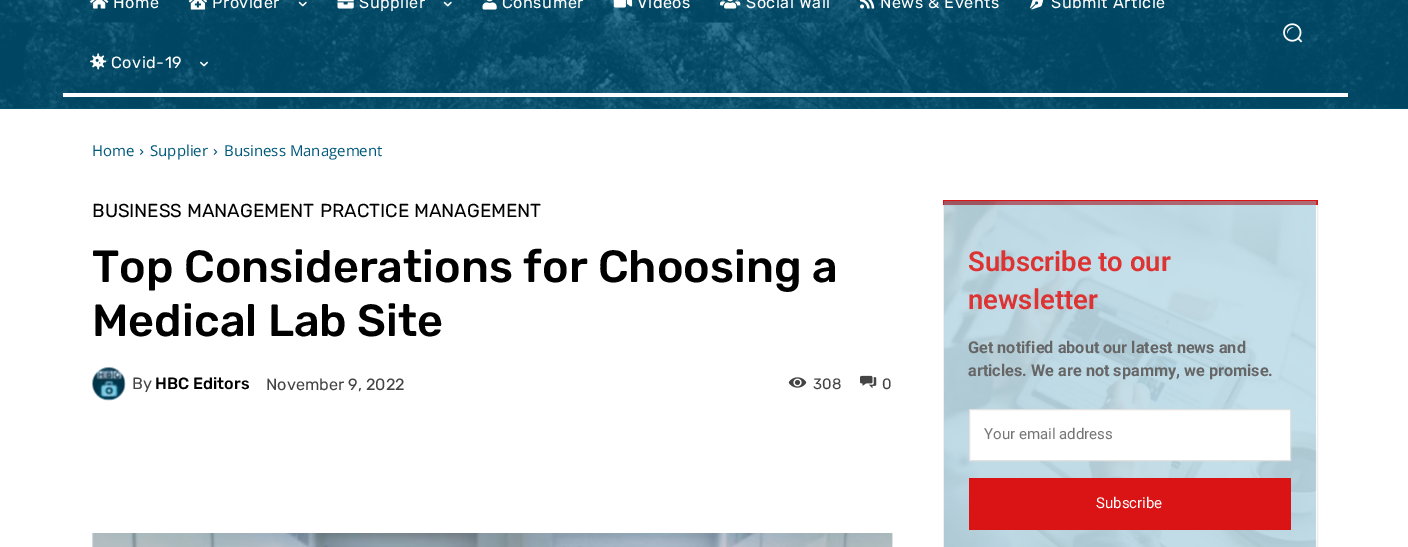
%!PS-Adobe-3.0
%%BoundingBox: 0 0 1408 547
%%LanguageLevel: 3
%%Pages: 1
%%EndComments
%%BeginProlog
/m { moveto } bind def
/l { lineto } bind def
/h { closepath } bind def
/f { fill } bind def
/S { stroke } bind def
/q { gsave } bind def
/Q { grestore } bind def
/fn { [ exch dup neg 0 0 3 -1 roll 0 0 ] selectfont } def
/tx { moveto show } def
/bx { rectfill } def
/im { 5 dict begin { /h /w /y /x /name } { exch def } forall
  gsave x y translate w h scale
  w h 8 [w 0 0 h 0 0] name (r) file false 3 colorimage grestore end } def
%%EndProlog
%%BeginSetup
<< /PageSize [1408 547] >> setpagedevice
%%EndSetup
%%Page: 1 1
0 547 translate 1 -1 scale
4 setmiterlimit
1 setgray
0 0 1408 547 bx
0.745 0.863 0.906 setrgbcolor
944 205 372 342 bx
0 0.345 0.478 setrgbcolor
0 0 1408 109 bx
(image0.raw) 0 0 1408 109 im
(image1.raw) 90 0 19 9 im
/Rubik-Regular 16.25 fn
1 setgray
113 8 m 0.5 0 (Home) ashow
(image2.raw) 188 0 19 10 im
212 8 m 0.5 0 (Provider) ashow
(image3.raw) 298 1 9 6 im
(image4.raw) 337 0 17 9 im
359 8 m 0.5 0 (Supplier) ashow
(image5.raw) 443 1 9 6 im
(image6.raw) 482 0 15 10 im
502 8 m 0.5 0 (Consumer) ashow
(image7.raw) 613 0 20 8 im
637 8 m 0.5 0 (Videos) ashow
(image8.raw) 720 0 21 9 im
746 8 m 0.5 0 (Social Wall) ashow
(image9.raw) 860 0 15 9 im
880 8 m 0.5 0 (News & Events) ashow
(image10.raw) 1030 0 14 10 im
1051 8 m 0.5 0 (Submit Article) ashow
(image11.raw) 90 53 17 17 im
111 68 m 0.5 0 (Covid-19) ashow
(image12.raw) 200 61 8 6 im
(image13.raw) 1283 23 20 20 im
63 93 1285 4 bx
/OpenSans-Regular 15 fn
0 0.345 0.478 setrgbcolor
(Home) 92 156 tx
(image14.raw) 140 149 4 6 im
(Supplier) 150 156 tx
(image15.raw) 213 149 5 6 im
(Business Management) 224 156 tx
/Rubik-Regular 18.75 fn
0 setgray
(BUSINESS MANAGEMENT) 92 217 tx
(PRACTICE MANAGEMENT) 320 217 tx
/Rubik-Medium 45 fn
(Top Considerations for Choosing a) 92 282 tx
(Medical Lab Site) 92 336 tx
(image16.raw) 92 367 34 34 im
/Rubik-Regular 16.25 fn
0.267 setgray
(By) 132 389 tx
/Rubik-Medium 16.25 fn
0 setgray
(HBC Editors) 155 389 tx
/Rubik-Regular 16.25 fn
0.267 setgray
(November 9, 2022) 266 390 tx
(image17.raw) 788 377 19 11 im
/Rubik-Regular 15 fn
(308) 813 389 tx
(image18.raw) 860 375 17 14 im
(0) 882 389 tx
(image19.raw) 92 533 801 14 im
0.933 setgray
943.5 200.5 374 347 rectstroke
0.855 0.078 0.078 setrgbcolor
943 200 375 5 bx
0.663 0.357 0.396 setrgbcolor
944 201 372 4 bx
(image20.raw) 944 201 373 346 im
/Roboto-SemiBold 27.5 fn
0.867 0.2 0.2 setrgbcolor
(Subscribe to our) 968 271 tx
(newsletter) 968 309 tx
/Roboto-Bold 16.25 fn
0.4 setgray
(Get notified about our latest news and) 968 353 tx
(articles. We are not spammy, we promise.) 968 376 tx
1 setgray
969.5 409.5 m 1290.5 409.5 l 1290.5 460.5 l 969.5 460.5 l h q f Q
0.882 setgray
S
/Roboto-Regular 15 fn
0.459 setgray
(Your email address) 984 439 tx
0.855 0.078 0.078 setrgbcolor
969 478 322 52 bx
1 setgray
(Subscribe) 1096 508 tx
showpage
%%EOF
